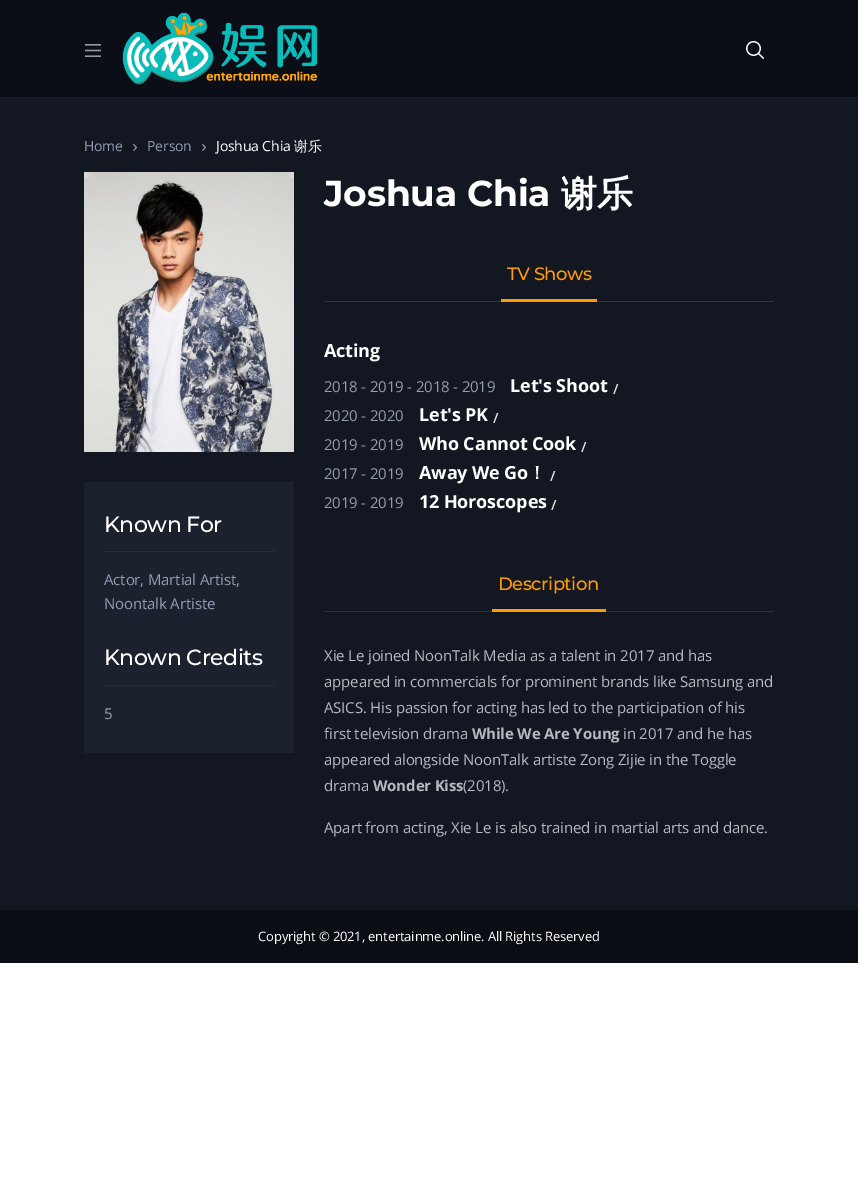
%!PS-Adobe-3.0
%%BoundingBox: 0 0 858 1179
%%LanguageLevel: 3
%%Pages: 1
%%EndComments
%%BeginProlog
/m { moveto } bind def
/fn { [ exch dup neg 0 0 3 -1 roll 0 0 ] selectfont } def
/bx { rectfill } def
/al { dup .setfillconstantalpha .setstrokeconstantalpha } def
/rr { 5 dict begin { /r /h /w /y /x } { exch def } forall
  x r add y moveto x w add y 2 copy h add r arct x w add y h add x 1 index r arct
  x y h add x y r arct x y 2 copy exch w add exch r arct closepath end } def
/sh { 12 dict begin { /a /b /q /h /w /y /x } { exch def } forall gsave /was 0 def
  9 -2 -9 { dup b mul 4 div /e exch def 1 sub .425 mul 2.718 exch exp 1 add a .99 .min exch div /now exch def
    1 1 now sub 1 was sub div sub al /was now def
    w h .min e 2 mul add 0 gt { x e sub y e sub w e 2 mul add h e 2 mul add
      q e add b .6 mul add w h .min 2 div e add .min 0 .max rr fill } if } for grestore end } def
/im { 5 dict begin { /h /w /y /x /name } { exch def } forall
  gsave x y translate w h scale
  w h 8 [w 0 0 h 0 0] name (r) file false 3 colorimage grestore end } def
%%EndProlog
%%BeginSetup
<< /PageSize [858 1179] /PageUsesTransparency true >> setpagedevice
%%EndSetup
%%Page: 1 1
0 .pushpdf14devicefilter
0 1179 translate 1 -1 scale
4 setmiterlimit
1 setgray
0 0 858 1179 bx
0.075 0.09 0.133 setrgbcolor
0 97 858 813 bx
0.2 setgray
0 0 858 97 0 4 0.3 sh
0.047 0.055 0.09 setrgbcolor
0 0 858 97 bx
(image0.raw) 85 44 16 13 im
(image1.raw) 122 12 196 73 im
(image2.raw) 746 41 18 18 im
/OpenSans-Regular 14 fn
0.58 0.612 0.69 setrgbcolor
84 151 m -0.15 0 (Home) ashow
(image3.raw) 133 144 4 7 im
147 151 m -0.15 0 (Person) ashow
(image3.raw) 202 144 4 7 im
1 setgray
216 151 m -0.15 0 (Joshua Chia) ashow
/WenQuanYiZenHei-Medium 14 fn
294 151 m -0.15 0 (谢乐) ashow
(image4.raw) 84 172 210 280 im
0.11 0.129 0.18 setrgbcolor
84 482 210 271 bx
0.184 0.184 0.2 setrgbcolor
104 551 170 1 bx
/Montserrat-Medium 22 fn
1 setgray
104 532 m -0.5 0 (Known For) ashow
/OpenSans-Regular 15 fn
0.58 0.612 0.69 setrgbcolor
104 585 m -0.15 0 (Actor, Martial Artist,) ashow
104 609 m -0.15 0 (Noontalk Artiste) ashow
0.184 0.184 0.2 setrgbcolor
104 685 170 1 bx
/Montserrat-Medium 22 fn
1 setgray
104 665 m -0.5 0 (Known Credits) ashow
/OpenSans-Regular 15 fn
0.58 0.612 0.69 setrgbcolor
104 719 m -0.15 0 (5) ashow
/Montserrat-Bold 36 fn
1 setgray
324 206 m -0.15 0 (Joshua Chia) ashow
/WenQuanYiZenHei-Bold 36 fn
561 206 m -0.15 0 (谢乐) ashow
0.157 0.212 0.263 setrgbcolor
324 301 450 1 bx
/Montserrat-Medium 18 fn
1 0.612 0.012 setrgbcolor
507 280 m -0.5 0 (TV Shows) ashow
501 299 96 3 bx
/OpenSans-Bold 18 fn
1 setgray
324 357 m -0.15 0 (Acting) ashow
/OpenSans-Regular 15 fn
0.58 0.612 0.69 setrgbcolor
324 392 m -0.15 0 (2018 - 2019 - 2018 - 2019) ashow
/OpenSans-Bold 18 fn
1 setgray
510 392 m -0.15 0 (Let's Shoot) ashow
/OpenSans-SemiBold 14 fn
0.89 setgray
613 394 m -0.15 0 (/) ashow
/OpenSans-Regular 15 fn
0.58 0.612 0.69 setrgbcolor
324 421 m -0.15 0 (2020 - 2020) ashow
/OpenSans-Bold 18 fn
1 setgray
419 421 m -0.15 0 (Let's PK) ashow
/OpenSans-SemiBold 14 fn
0.89 setgray
493 423 m -0.15 0 (/) ashow
/OpenSans-Regular 15 fn
0.58 0.612 0.69 setrgbcolor
324 450 m -0.15 0 (2019 - 2019) ashow
/OpenSans-Bold 18 fn
1 setgray
419 450 m -0.15 0 (Who Cannot Cook) ashow
/OpenSans-SemiBold 14 fn
0.89 setgray
581 452 m -0.15 0 (/) ashow
/OpenSans-Regular 15 fn
0.58 0.612 0.69 setrgbcolor
324 479 m -0.15 0 (2017 - 2019) ashow
/OpenSans-Bold 18 fn
1 setgray
419 479 m -0.15 0 (Away We Go) ashow
/WenQuanYiZenHei-Bold 18 fn
528 479 m -0.15 0 (！) ashow
/OpenSans-SemiBold 14 fn
0.89 setgray
550 481 m -0.15 0 (/) ashow
/OpenSans-Regular 15 fn
0.58 0.612 0.69 setrgbcolor
324 508 m -0.15 0 (2019 - 2019) ashow
/OpenSans-Bold 18 fn
1 setgray
419 508 m -0.15 0 (12 Horoscopes) ashow
/OpenSans-SemiBold 14 fn
0.89 setgray
551 510 m -0.15 0 (/) ashow
0.157 0.212 0.263 setrgbcolor
324 611 450 1 bx
/Montserrat-Medium 18 fn
1 0.612 0.012 setrgbcolor
498 590 m -0.5 0 (Description) ashow
492 609 114 3 bx
/OpenSans-Regular 15 fn
0.706 0.733 0.753 setrgbcolor
324 661 m -0.15 0 (Xie Le joined NoonTalk Media as a talent in 2017 and has) ashow
324 687 m -0.15 0 (appeared in commercials for prominent brands like Samsung and) ashow
324 713 m -0.15 0 (ASICS. His passion for acting has led to the participation of his) ashow
324 739 m -0.15 0 (first television drama) ashow
/OpenSans-Bold 15 fn
472 739 m -0.15 0 (While We Are Young) ashow
/OpenSans-Regular 15 fn
623 739 m -0.15 0 (in 2017 and he has) ashow
324 765 m -0.15 0 (appeared alongside NoonTalk artiste Zong Zijie in the Toggle) ashow
324 791 m -0.15 0 (drama) ashow
/OpenSans-Bold 15 fn
373 791 m -0.15 0 (Wonder Kiss) ashow
/OpenSans-Regular 15 fn
463 791 m -0.15 0 (\(2018\).) ashow
324 833 m -0.15 0 (Apart from acting, Xie Le is also trained in martial arts and dance.) ashow
0.039 0.051 0.078 setrgbcolor
0 910 858 53 bx
/OpenSans-Regular 13 fn
1 setgray
258 941 m -0.15 0 (Copyright © 2021, entertainme.online. All Rights Reserved) ashow
.poppdf14devicefilter showpage
%%EOF
